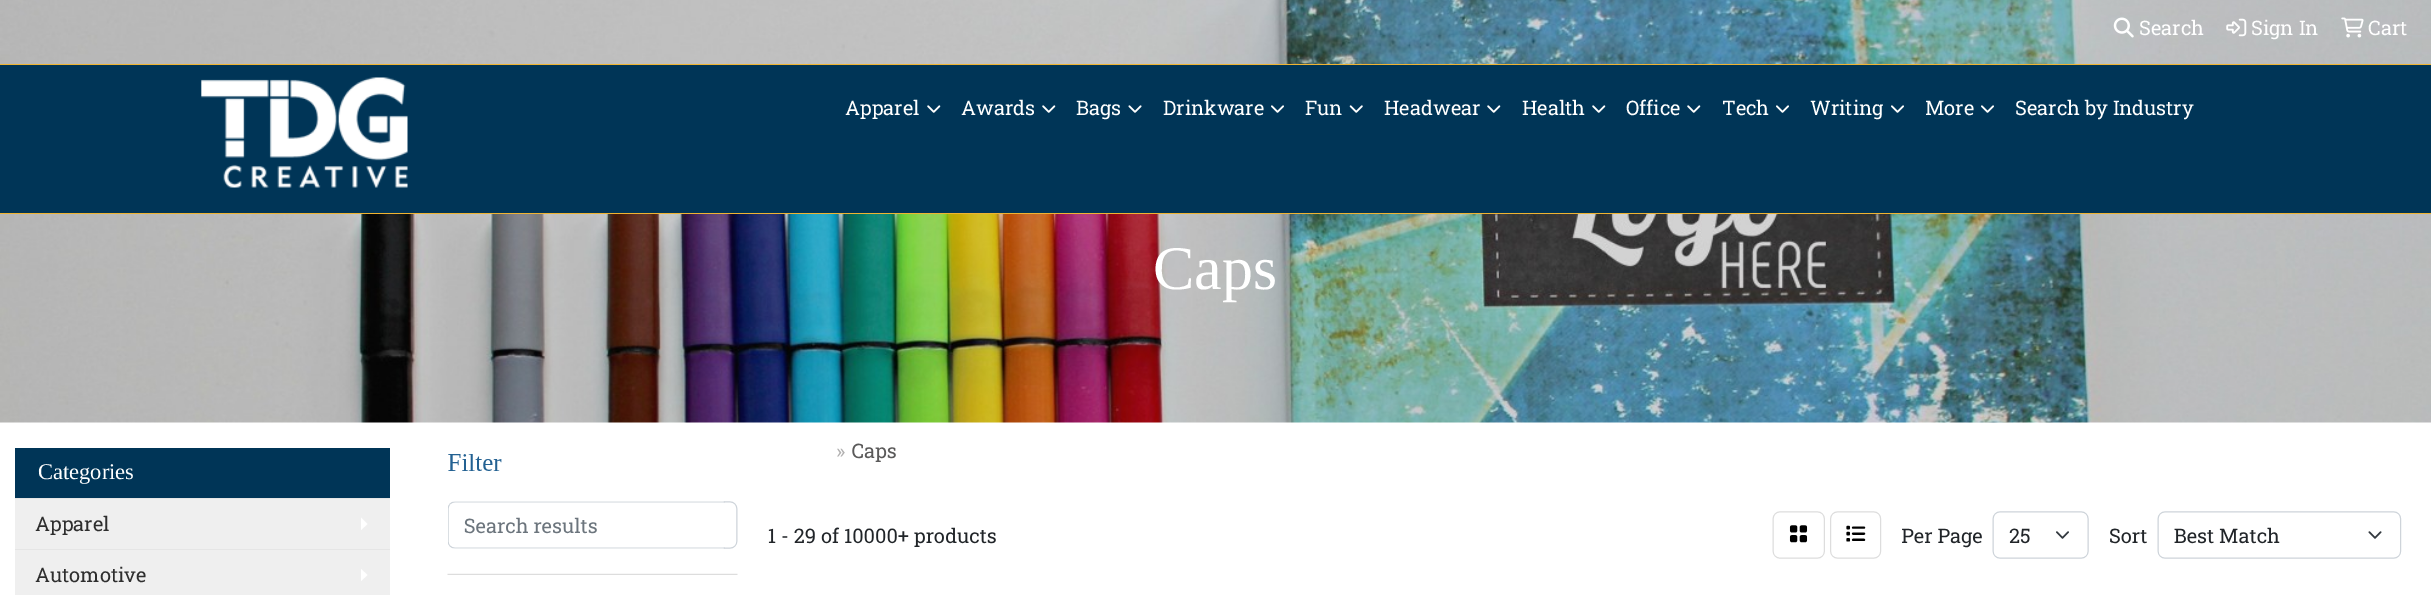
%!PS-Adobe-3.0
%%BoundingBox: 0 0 2431 595
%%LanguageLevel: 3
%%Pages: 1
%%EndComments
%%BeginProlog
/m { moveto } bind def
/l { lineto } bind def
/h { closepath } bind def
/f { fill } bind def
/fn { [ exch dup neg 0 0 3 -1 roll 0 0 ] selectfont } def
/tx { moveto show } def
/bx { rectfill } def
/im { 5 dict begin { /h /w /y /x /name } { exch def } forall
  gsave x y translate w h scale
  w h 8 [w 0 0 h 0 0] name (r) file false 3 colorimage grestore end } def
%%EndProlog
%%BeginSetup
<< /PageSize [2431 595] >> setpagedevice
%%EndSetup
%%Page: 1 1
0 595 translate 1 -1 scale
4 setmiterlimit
1 setgray
0 0 2431 595 bx
(image8.raw) 0 0 2431 423 im
(image0.raw) 2113 17 21 21 im
/RobotoSlab-Regular 20 fn
(Search) 2139 35 tx
(image1.raw) 2226 18 21 19 im
(Sign In) 2251 35 tx
(image2.raw) 2341 17 23 21 im
(Cart) 2368 35 tx
0 0.208 0.341 setrgbcolor
0 65 2431 148 bx
0.941 0.706 0.192 setrgbcolor
0 64 2431 1 bx
0 213 2431 1 bx
(image3.raw) 201 77 207 111 im
1 setgray
(Apparel) 845 115 tx
(image4.raw) 927 105 14 8 im
(Awards) 961 115 tx
(image4.raw) 1042 105 14 8 im
(Bags) 1076 115 tx
(image5.raw) 1128 105 14 8 im
(Drinkware) 1163 115 tx
(image6.raw) 1271 105 13 8 im
(Fun) 1305 115 tx
(image7.raw) 1349 105 14 8 im
(Headwear) 1384 115 tx
(image4.raw) 1487 105 14 8 im
(Health) 1522 115 tx
(image4.raw) 1592 105 14 8 im
(Office) 1626 115 tx
(image4.raw) 1687 105 14 8 im
(Tech) 1722 115 tx
(image6.raw) 1776 105 13 8 im
(Writing) 1810 115 tx
(image6.raw) 1891 105 13 8 im
(More) 1925 115 tx
(image6.raw) 1981 105 13 8 im
(Search by Industry) 2015 115 tx
/LiberationSerif-Regular 62 fn
(Caps) 1153 289 tx
0 0.208 0.341 setrgbcolor
15 448 375 50 bx
/LiberationSerif-Regular 22.5 fn
1 setgray
(Categories) 38 479 tx
0.937 setgray
15 499 375 50 bx
0.898 setgray
15 498 375 1 bx
/RobotoSlab-Regular 20 fn
0.18 setgray
(Apparel) 35 531 tx
1 setgray
361 530 m 361 517.5 l 367.5 524 l h f
0.937 setgray
15 550 375 45 bx
0.898 setgray
15 549 375 1 bx
0.18 setgray
(Automotive) 35 582 tx
1 setgray
361 581 m 361 569 l 367.5 575 l h f
(image9.raw) 447 443 1955 132 im
showpage
%%EOF
